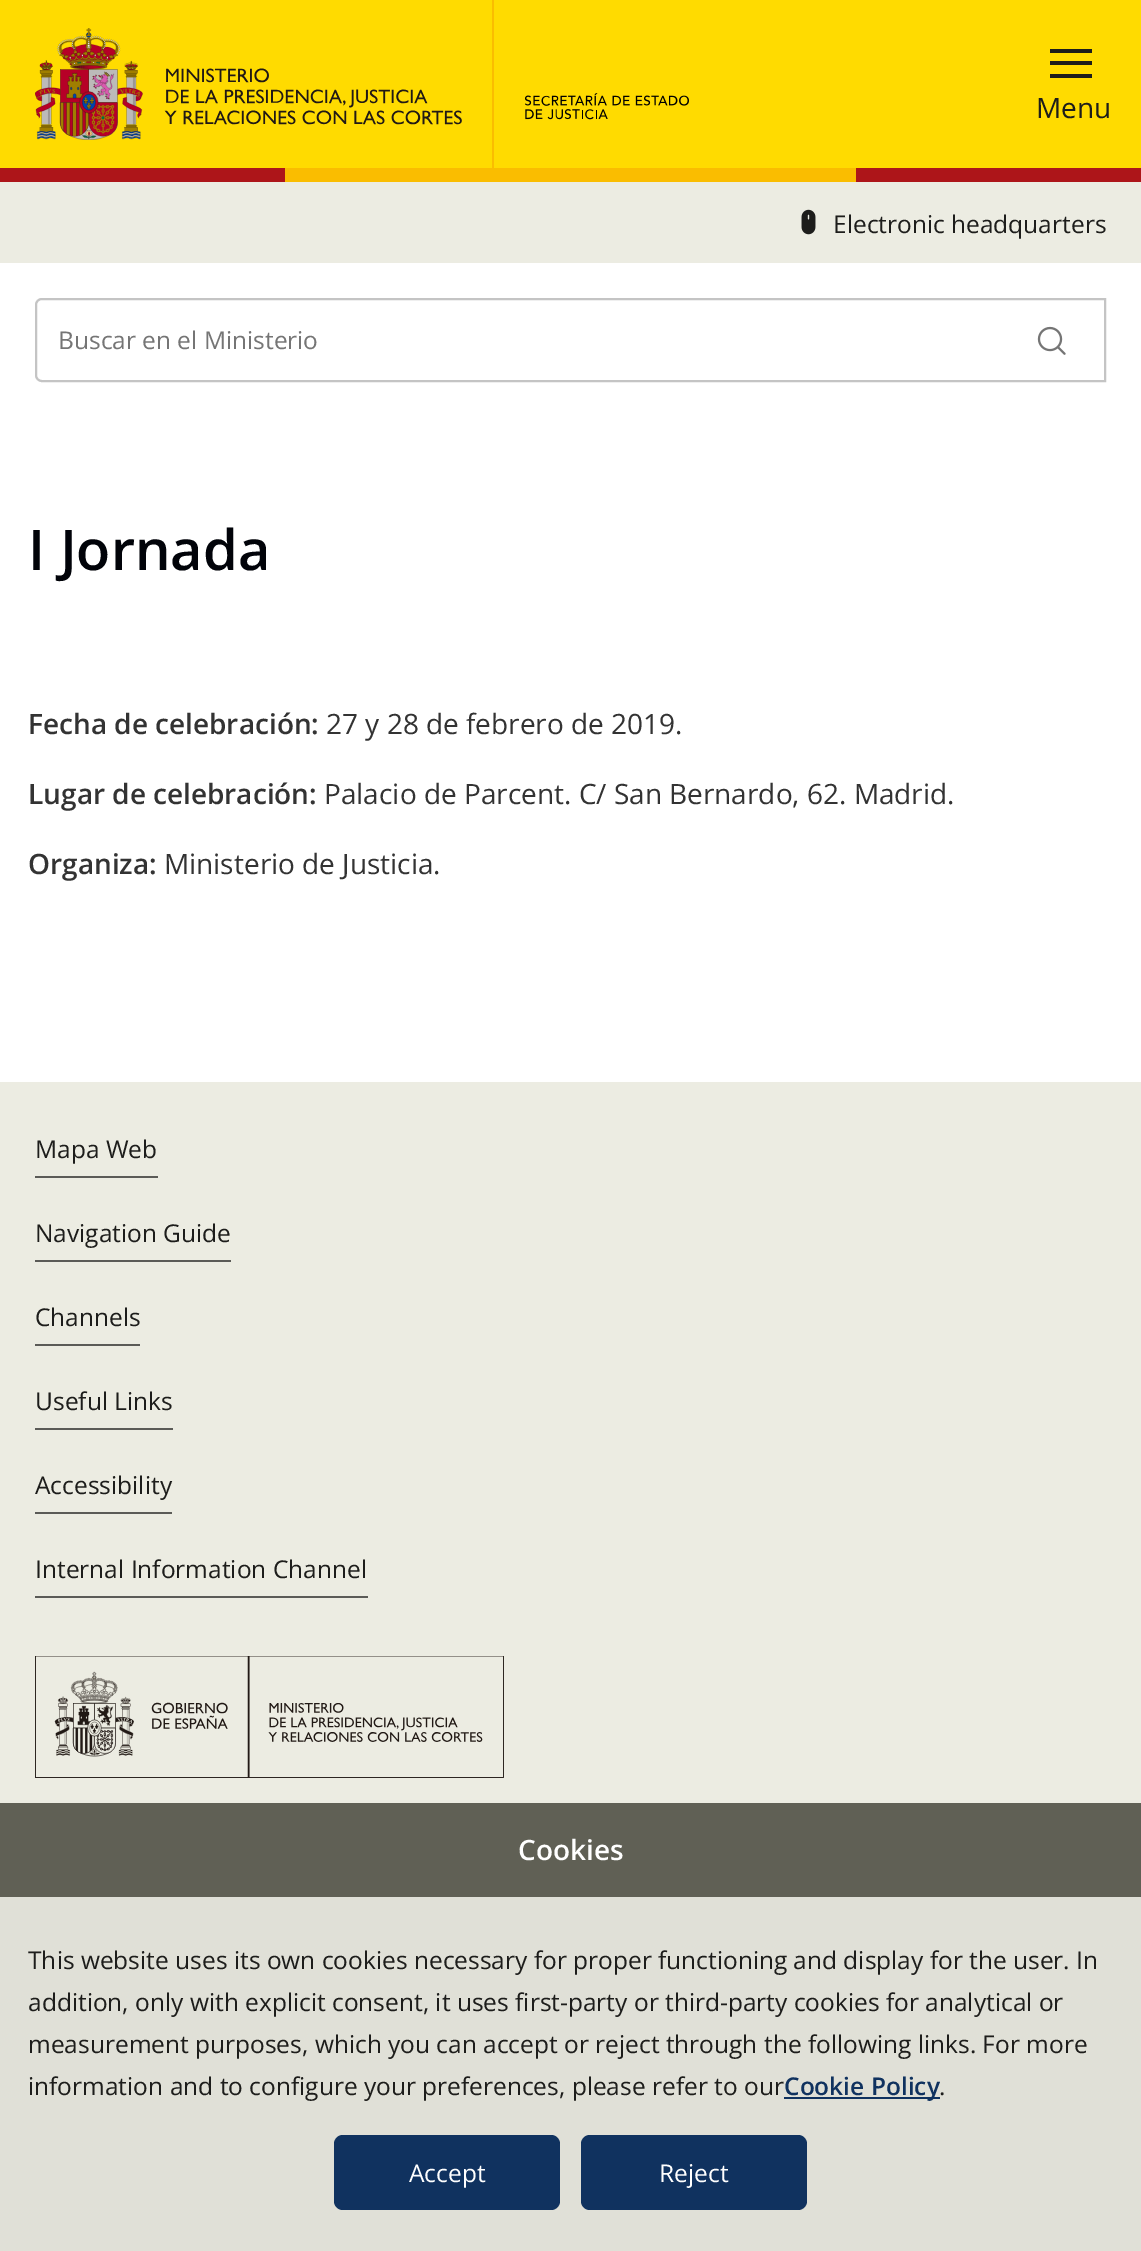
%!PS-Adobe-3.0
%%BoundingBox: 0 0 1141 2251
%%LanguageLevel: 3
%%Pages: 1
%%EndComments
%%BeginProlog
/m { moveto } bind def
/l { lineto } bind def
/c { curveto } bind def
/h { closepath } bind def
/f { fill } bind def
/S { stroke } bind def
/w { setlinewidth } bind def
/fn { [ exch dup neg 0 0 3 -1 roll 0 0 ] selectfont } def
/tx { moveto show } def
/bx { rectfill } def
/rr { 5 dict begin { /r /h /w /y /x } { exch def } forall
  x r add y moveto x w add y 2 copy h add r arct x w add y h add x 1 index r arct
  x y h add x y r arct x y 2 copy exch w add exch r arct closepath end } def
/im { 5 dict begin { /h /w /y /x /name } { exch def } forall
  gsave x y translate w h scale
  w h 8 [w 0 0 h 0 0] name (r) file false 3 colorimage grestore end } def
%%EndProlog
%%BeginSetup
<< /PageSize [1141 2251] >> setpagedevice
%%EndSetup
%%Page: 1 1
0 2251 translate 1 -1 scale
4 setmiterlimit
1 setgray
0 0 1141 2251 bx
1 0.859 0 setrgbcolor
0 0 1141 168 bx
(image0.raw) 35 28 427 112 im
0.98 0.741 0 setrgbcolor
492 0 2 175 bx
(image1.raw) 525 93 164 27 im
0.114 0.114 0.106 setrgbcolor
1050 49 42 4 bx
1050 61 42 4 bx
1050 74 42 4 bx
/OpenSans-Regular 28 fn
(Menu) 1036 118 tx
0.98 0.741 0 setrgbcolor
285 168 571 14 bx
0.678 0.082 0.098 setrgbcolor
0 168 285 14 bx
856 168 285 14 bx
0.925 0.925 0.886 setrgbcolor
0 182 1141 81 bx
(image2.raw) 801 209 15 26 im
/OpenSans-Regular 24.5 fn
0.114 0.114 0.106 setrgbcolor
(Electronic headquarters) 833 233 tx
0.769 setgray
2 w
42 299 m 1105 299 l 1105 381 l 42 381 l 38.5 381 36 378.5 36 375 c 36 305 l 36 301.5 38.5 299 42 299 c h S
0.459 setgray
(Buscar en el Ministerio) 58 349 tx
(image3.raw) 1037 326 29 29 im
/OpenSans-SemiBold 56 fn
0.004 0.012 0.035 setrgbcolor
(I Jornada) 28 570 tx
/OpenSans-SemiBold 28 fn
0.2 setgray
(Fecha de celebración:) 28 734 tx
/OpenSans-Regular 28 fn
(27 y 28 de febrero de 2019.) 326 734 tx
/OpenSans-SemiBold 28 fn
(Lugar de celebración:) 28 804 tx
/OpenSans-Regular 28 fn
(Palacio de Parcent. C/ San Bernardo, 62. Madrid.) 324 804 tx
/OpenSans-SemiBold 28 fn
(Organiza:) 28 874 tx
/OpenSans-Regular 28 fn
(Ministerio de Justicia.) 164 874 tx
0.925 0.925 0.886 setrgbcolor
0 1082 1141 721 bx
/OpenSans-Regular 24.5 fn
0.114 0.114 0.106 setrgbcolor
(Mapa Web) 35 1158 tx
0.357 0.357 0.341 setrgbcolor
35 1176 123 2 bx
0.114 0.114 0.106 setrgbcolor
(Navigation Guide) 35 1242 tx
0.357 0.357 0.341 setrgbcolor
35 1260 196 2 bx
0.114 0.114 0.106 setrgbcolor
(Channels) 35 1326 tx
0.357 0.357 0.341 setrgbcolor
35 1344 105 2 bx
0.114 0.114 0.106 setrgbcolor
(Useful Links) 35 1410 tx
0.357 0.357 0.341 setrgbcolor
35 1428 138 2 bx
0.114 0.114 0.106 setrgbcolor
(Accessibility) 35 1494 tx
0.357 0.357 0.341 setrgbcolor
35 1512 137 2 bx
0.114 0.114 0.106 setrgbcolor
(Internal Information Channel) 35 1578 tx
0.357 0.357 0.341 setrgbcolor
35 1596 333 2 bx
(image4.raw) 35 1656 469 122 im
0.878 0.878 0.843 setrgbcolor
0 1897 1141 354 bx
0.376 0.376 0.333 setrgbcolor
0 1803 1141 94 bx
/OpenSans-SemiBold 28 fn
1 setgray
(Cookies) 518 1860 tx
/OpenSans-Regular 24.5 fn
0.114 0.114 0.106 setrgbcolor
(This website uses its own cookies necessary for proper functioning and display for the user. In) 28 1969 tx
(addition, only with explicit consent, it uses first-party or third-party cookies for analytical or) 28 2011 tx
(measurement purposes, which you can accept or reject through the following links. For more) 28 2053 tx
(information and to configure your preferences, please refer to our) 28 2095 tx
0.063 0.196 0.373 setrgbcolor
784 2097 156 2 bx
/OpenSans-SemiBold 24.5 fn
(Cookie Policy) 784 2095 tx
/OpenSans-Regular 24.5 fn
0.114 0.114 0.106 setrgbcolor
(.) 939 2095 tx
0.063 0.196 0.373 setrgbcolor
334 2135 226 75 9 rr f
1 setgray
(Accept) 409 2182 tx
0.063 0.196 0.373 setrgbcolor
581 2135 226 75 9 rr f
1 setgray
(Reject) 659 2182 tx
showpage
%%EOF
